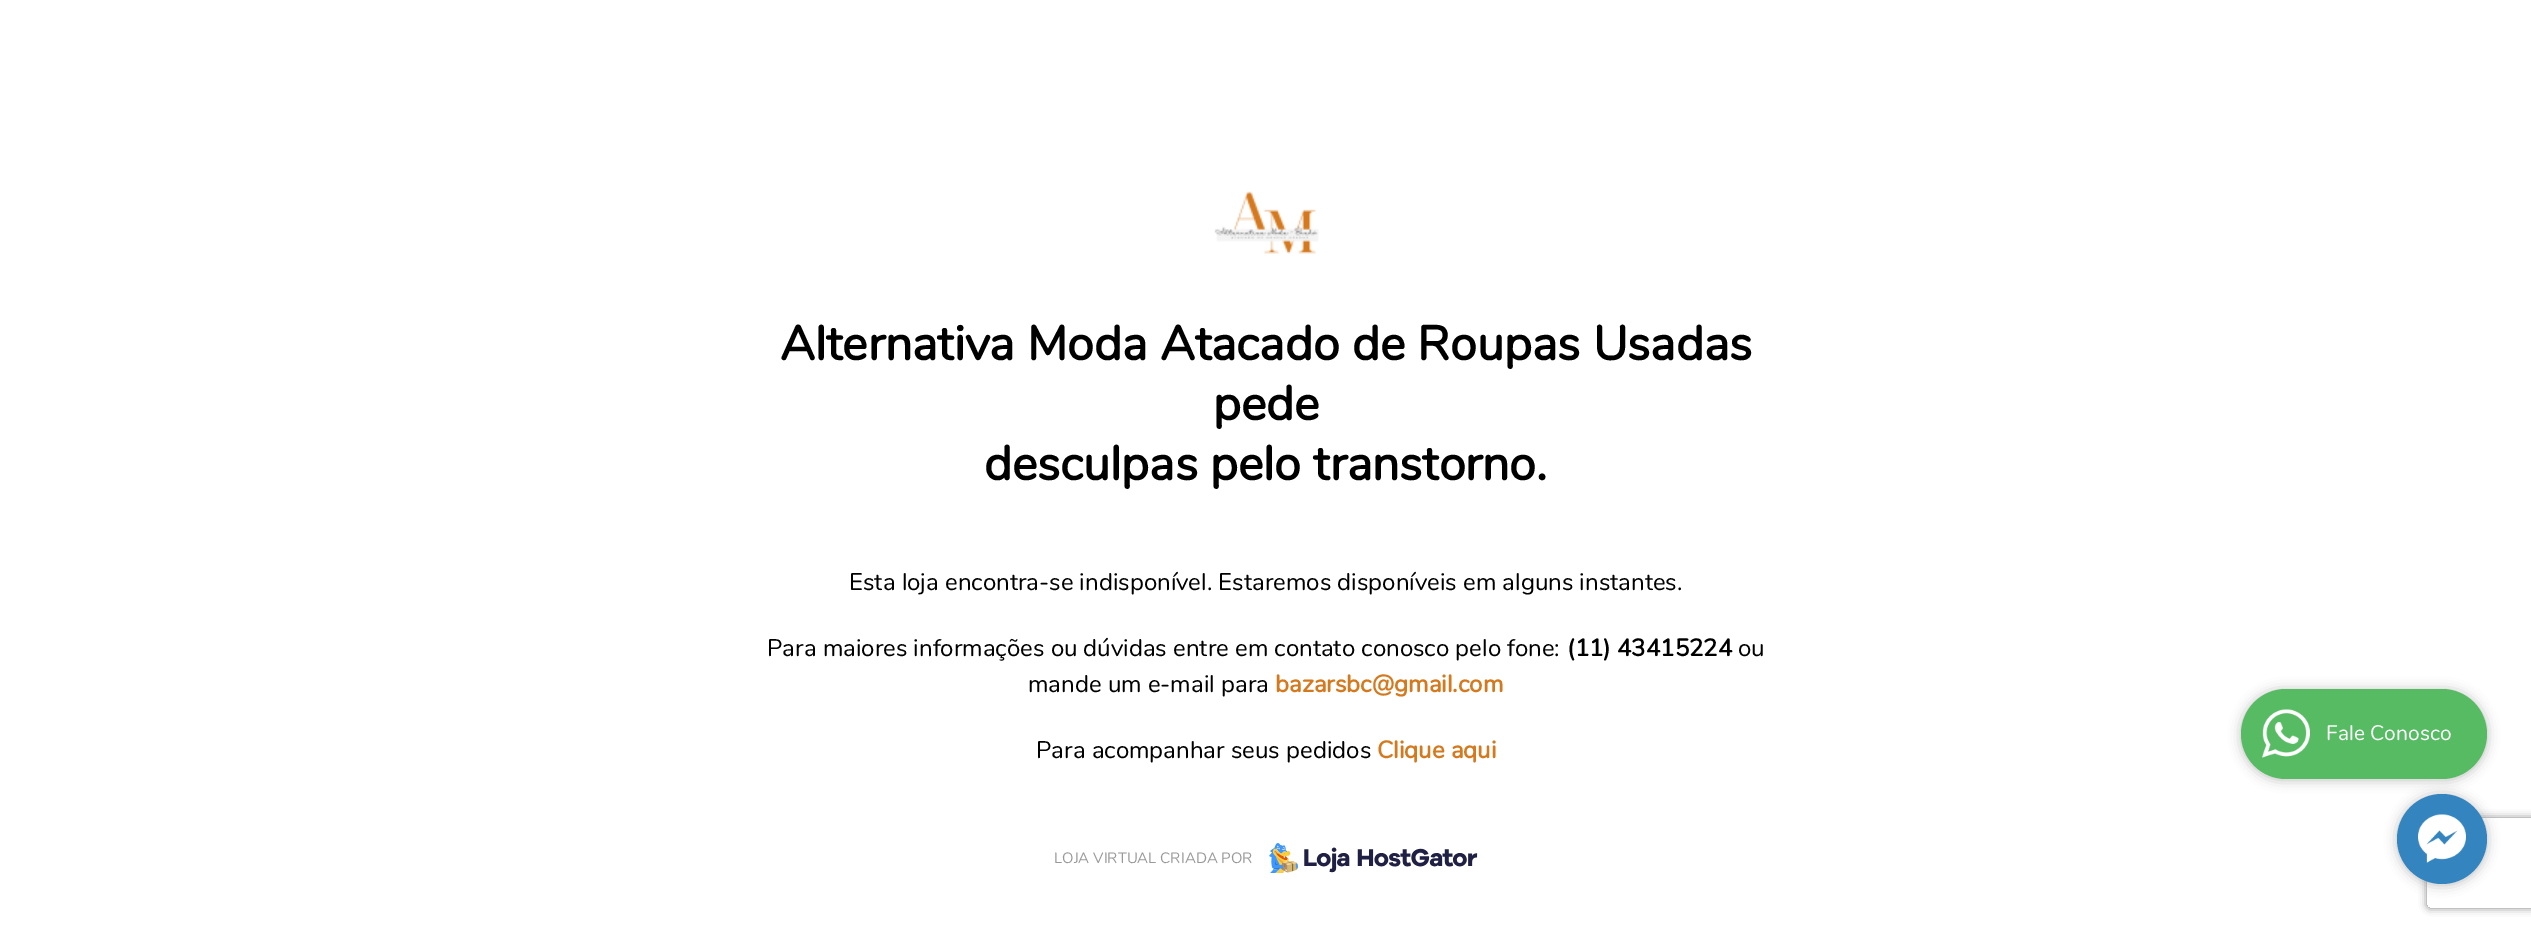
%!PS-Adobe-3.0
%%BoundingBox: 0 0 2531 928
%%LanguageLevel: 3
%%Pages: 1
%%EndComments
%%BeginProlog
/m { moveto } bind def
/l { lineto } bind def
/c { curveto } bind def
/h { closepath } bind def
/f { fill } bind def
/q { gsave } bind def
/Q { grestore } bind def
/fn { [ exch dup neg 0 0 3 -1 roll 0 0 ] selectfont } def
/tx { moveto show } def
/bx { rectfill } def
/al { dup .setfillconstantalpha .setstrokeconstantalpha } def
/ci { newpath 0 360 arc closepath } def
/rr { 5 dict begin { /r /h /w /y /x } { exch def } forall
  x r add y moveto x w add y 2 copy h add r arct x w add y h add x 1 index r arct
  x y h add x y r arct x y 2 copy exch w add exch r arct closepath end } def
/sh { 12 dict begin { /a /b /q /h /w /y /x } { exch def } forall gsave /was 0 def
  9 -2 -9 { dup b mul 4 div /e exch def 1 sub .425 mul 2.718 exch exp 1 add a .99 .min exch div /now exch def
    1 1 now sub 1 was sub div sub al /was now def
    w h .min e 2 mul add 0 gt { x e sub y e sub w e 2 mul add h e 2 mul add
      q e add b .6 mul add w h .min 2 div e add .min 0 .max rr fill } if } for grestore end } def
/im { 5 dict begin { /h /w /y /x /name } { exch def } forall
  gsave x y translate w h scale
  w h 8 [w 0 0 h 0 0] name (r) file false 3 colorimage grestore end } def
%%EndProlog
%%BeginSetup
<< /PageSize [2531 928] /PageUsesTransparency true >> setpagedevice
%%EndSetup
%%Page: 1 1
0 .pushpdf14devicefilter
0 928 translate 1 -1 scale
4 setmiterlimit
1 setgray
0 0 2531 928 bx
(image0.raw) 1214 191 105 63 im
/Nunito-Bold 48 fn
0 setgray
(Alternativa Moda Atacado de Roupas Usadas) 780 360 tx
(pede) 1213 420 tx
(desculpas pelo transtorno.) 984 480 tx
/Nunito-Regular 24 fn
(Esta loja encontra-se indisponível. Estaremos disponíveis em alguns instantes.) 849 590 tx
(Para maiores informações ou dúvidas entre em contato conosco pelo fone:) 767 656 tx
/Nunito-Bold 24 fn
(\(11\) 43415224) 1567 656 tx
/Nunito-Regular 24 fn
(ou) 1738 656 tx
(mande um e-mail para) 1028 692 tx
/Nunito-Bold 24 fn
0.835 0.475 0.122 setrgbcolor
(bazarsbc@gmail.com) 1275 692 tx
/Nunito-Regular 24 fn
0 setgray
(Para acompanhar seus pedidos) 1036 758 tx
/Nunito-Bold 24 fn
0.835 0.475 0.122 setrgbcolor
(Clique aqui) 1377 758 tx
0 setgray
2397 795 90 90 45 6 0.25 sh
q
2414 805 m 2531 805 l 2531 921 l 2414 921 l h 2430 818 m 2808 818 l 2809.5 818 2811 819.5 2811 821 c 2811 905 l 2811 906.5 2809.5 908 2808 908 c 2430 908 l 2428.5 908 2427 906.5 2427 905 c 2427 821 l 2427 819.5 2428.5 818 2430 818 c h eoclip newpath
0.502 setgray
2427 818 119 90 3 4 1 sh
Q
0.204 0.522 0.749 setrgbcolor
2442 839 45 ci f
0 setgray
2241 690 246 90 45 6 0.25 sh
0.341 0.733 0.388 setrgbcolor
2241 689 246 90 45 rr f
(image1.raw) 2262 709 48 49 im
/Nunito-Regular 21 fn
1 setgray
(Fale Conosco) 2326 740 tx
(image2.raw) 2418 814 48 49 im
/Nunito-Regular 15 fn
0.6 setgray
(LOJA VIRTUAL CRIADA POR) 1054 863 tx
(image3.raw) 1269 843 209 30 im
.poppdf14devicefilter showpage
%%EOF
